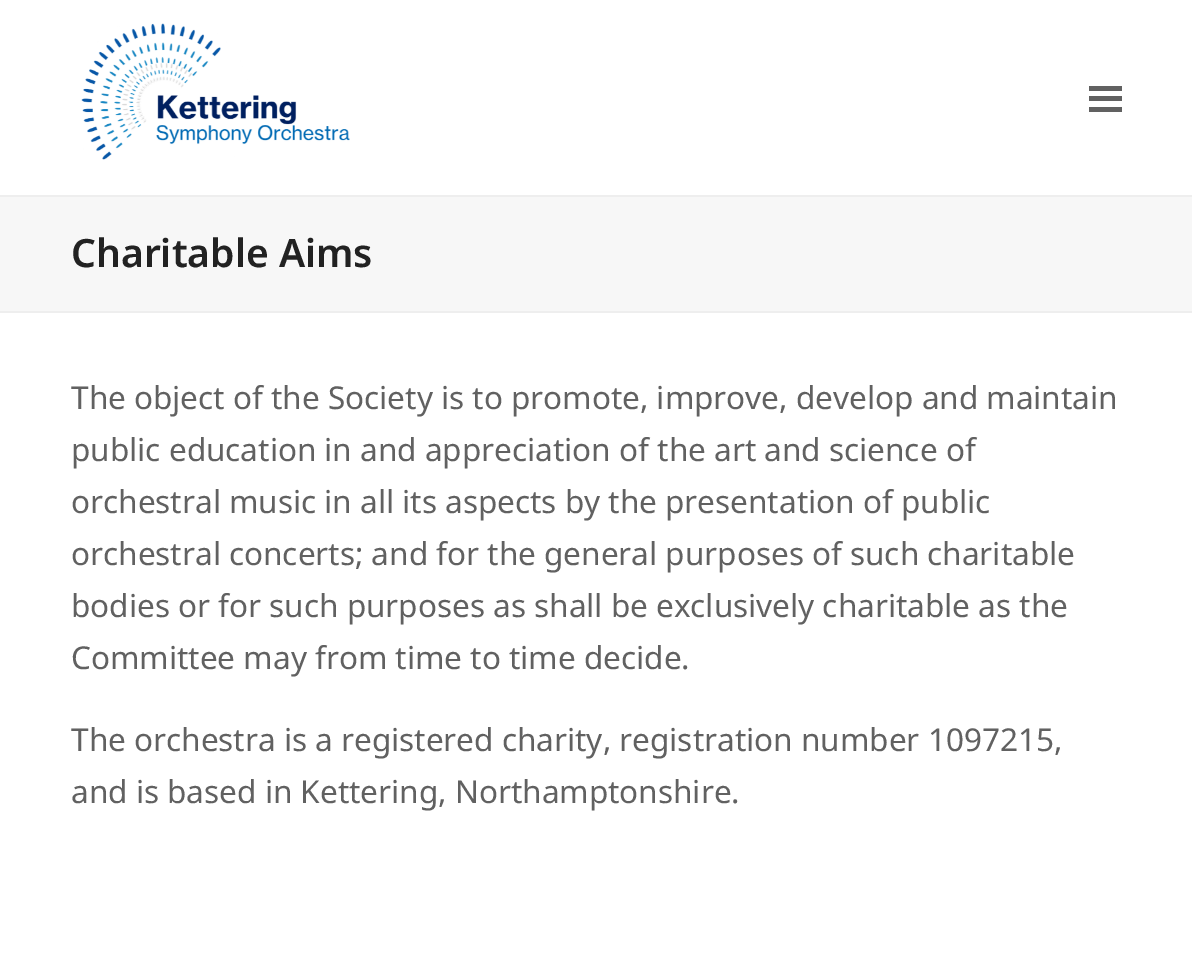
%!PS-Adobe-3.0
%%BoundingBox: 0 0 1192 958
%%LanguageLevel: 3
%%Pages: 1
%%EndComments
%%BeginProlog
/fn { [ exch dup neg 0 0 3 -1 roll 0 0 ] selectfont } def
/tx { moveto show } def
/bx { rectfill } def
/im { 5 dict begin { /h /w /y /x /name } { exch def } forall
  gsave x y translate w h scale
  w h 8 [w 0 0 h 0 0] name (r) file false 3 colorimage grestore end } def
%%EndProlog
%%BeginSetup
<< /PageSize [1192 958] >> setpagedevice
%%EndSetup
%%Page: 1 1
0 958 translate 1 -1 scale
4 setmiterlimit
1 setgray
0 0 1192 958 bx
(image0.raw) 81 23 269 137 im
0.38 setgray
1089 96 33 5 bx
1089 86 33 5 bx
1089 107 33 5 bx
0.969 setgray
0 197 1192 114 bx
0.933 setgray
0 195 1192 2 bx
0 311 1192 2 bx
/NotoSans-SemiBold 39 fn
0.133 setgray
(Charitable Aims) 71 267 tx
/NotoSans-Regular 31.5 fn
0.38 setgray
(The object of the Society is to promote, improve, develop and maintain) 71 409 tx
(public education in and appreciation of the art and science of) 71 461 tx
(orchestral music in all its aspects by the presentation of public) 71 513 tx
(orchestral concerts; and for the general purposes of such charitable) 71 565 tx
(bodies or for such purposes as shall be exclusively charitable as the) 71 617 tx
(Committee may from time to time decide.) 71 669 tx
(The orchestra is a registered charity, registration number 1097215,) 71 751 tx
(and is based in Kettering, Northamptonshire.) 71 803 tx
showpage
%%EOF
